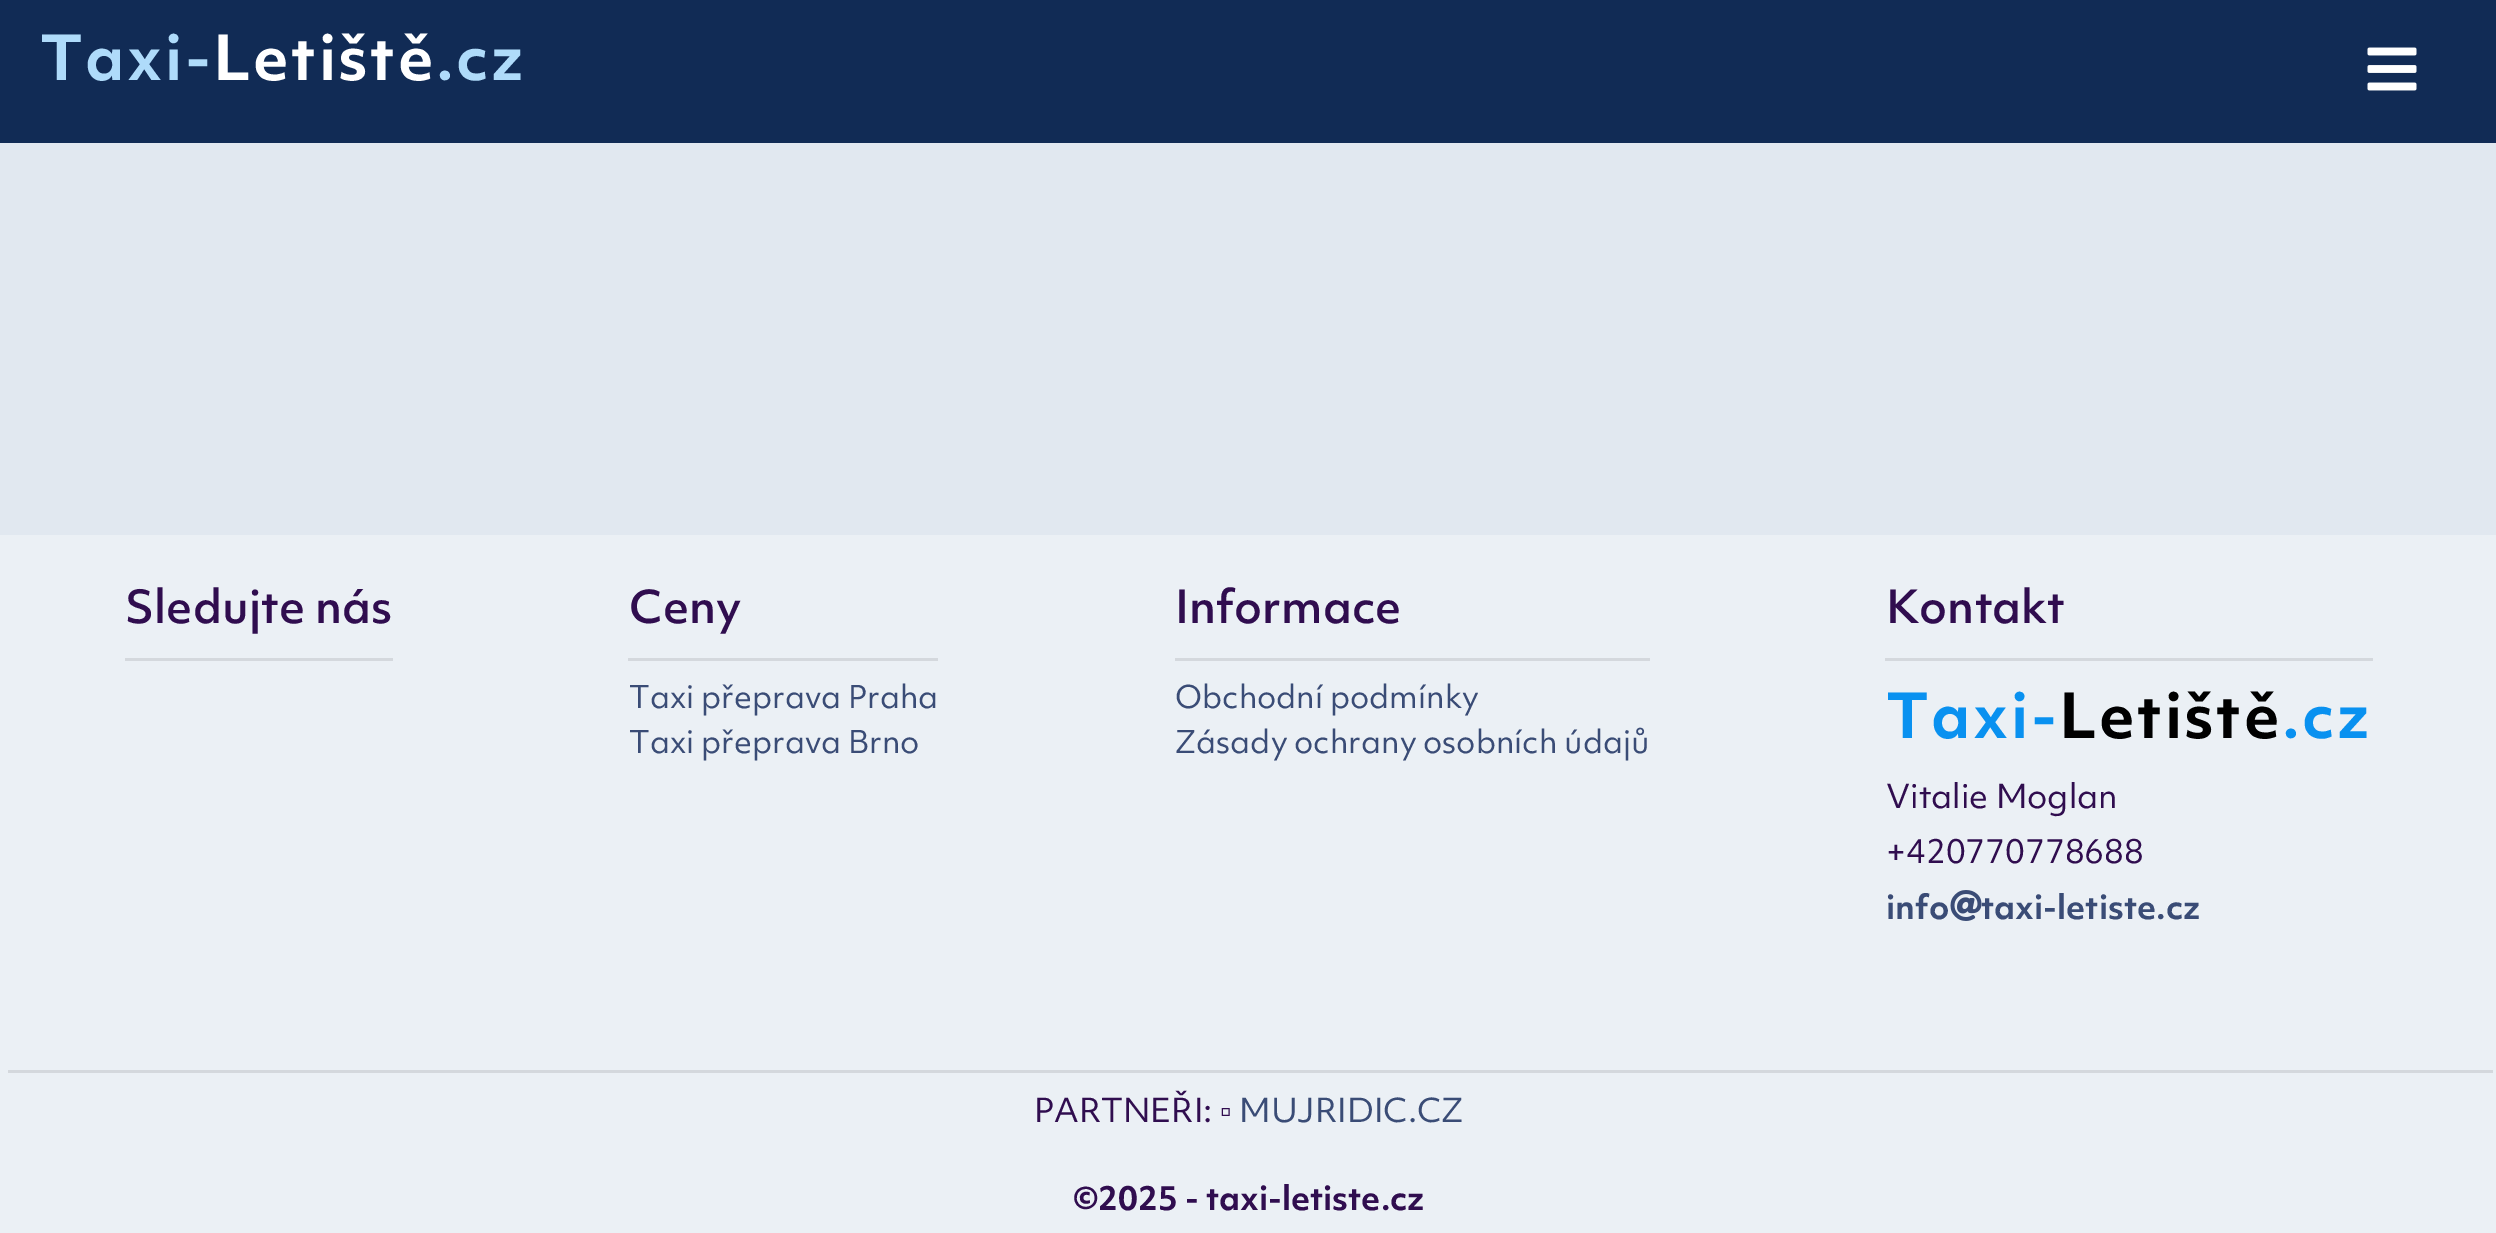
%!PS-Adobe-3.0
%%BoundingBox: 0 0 2496 1233
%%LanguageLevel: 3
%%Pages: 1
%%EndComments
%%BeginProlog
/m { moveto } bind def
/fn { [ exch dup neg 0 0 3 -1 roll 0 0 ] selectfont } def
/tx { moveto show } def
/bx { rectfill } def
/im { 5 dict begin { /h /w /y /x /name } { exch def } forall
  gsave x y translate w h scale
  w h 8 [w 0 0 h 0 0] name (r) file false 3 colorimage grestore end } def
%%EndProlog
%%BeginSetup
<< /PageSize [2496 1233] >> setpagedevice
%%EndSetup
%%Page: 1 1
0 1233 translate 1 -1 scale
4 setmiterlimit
0.882 0.91 0.941 setrgbcolor
0 0 2496 1233 bx
0.067 0.169 0.333 setrgbcolor
0 0 2496 143 bx
/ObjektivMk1-Bold 60 fn
0.686 0.859 0.98 setrgbcolor
40 80 m 2.5 0 (Taxi-) ashow
1 setgray
213 80 m 2.5 0 (Letiště) ashow
0.686 0.859 0.98 setrgbcolor
436 80 m 2.5 0 (.cz) ashow
(image0.raw) 2367 47 50 44 im
0.922 0.941 0.961 setrgbcolor
0 535 2496 698 bx
/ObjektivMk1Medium-Medium 44 fn
0.188 0.051 0.31 setrgbcolor
(Sledujte nás) 125 623 tx
0.831 0.847 0.867 setrgbcolor
125 658 268 3 bx
0.188 0.051 0.31 setrgbcolor
(Ceny) 629 623 tx
0.831 0.847 0.867 setrgbcolor
628 658 310 3 bx
/ObjektivMk1-Regular 30.4 fn
0.227 0.298 0.463 setrgbcolor
(Taxi přeprava Praha) 629 708 tx
(Taxi přeprava Brno) 629 753 tx
/ObjektivMk1Medium-Medium 44 fn
0.188 0.051 0.31 setrgbcolor
(Informace) 1175 623 tx
0.831 0.847 0.867 setrgbcolor
1175 658 475 3 bx
/ObjektivMk1-Regular 30.4 fn
0.227 0.298 0.463 setrgbcolor
(Obchodní podmínky) 1175 708 tx
(Zásady ochrany osobních údajů) 1175 753 tx
/ObjektivMk1Medium-Medium 44 fn
0.188 0.051 0.31 setrgbcolor
(Kontakt) 1886 623 tx
0.831 0.847 0.867 setrgbcolor
1885 658 488 3 bx
/ObjektivMk1-Bold 60 fn
0.035 0.569 0.941 setrgbcolor
1886 738 m 2.5 0 (Taxi-) ashow
0 setgray
2059 738 m 2.5 0 (Letiště) ashow
0.035 0.569 0.941 setrgbcolor
2282 738 m 2.5 0 (.cz) ashow
/ObjektivMk1-Regular 32 fn
0.188 0.051 0.31 setrgbcolor
(Vitalie Moglan) 1886 808 tx
(+420770778688) 1886 863 tx
/ObjektivMk1-Bold 32 fn
0.227 0.298 0.463 setrgbcolor
(info) 1886 919 tx
(image1.raw) 1950 890 32 31 im
(taxi-letiste.cz) 1981 919 tx
0.831 0.847 0.867 setrgbcolor
8 1070 2485 3 bx
/ObjektivMk1-Regular 32 fn
0.188 0.051 0.31 setrgbcolor
(PARTNEŘI:) 1034 1122 tx
/LiberationSans-Regular 32 fn
(▫) 1220 1122 tx
/ObjektivMk1-Regular 32 fn
0.227 0.298 0.463 setrgbcolor
(MUJRIDIC.CZ) 1239 1122 tx
/ObjektivMk1-Bold 32 fn
0.188 0.051 0.31 setrgbcolor
(©2025 - taxi-letiste.cz) 1073 1210 tx
showpage
%%EOF
